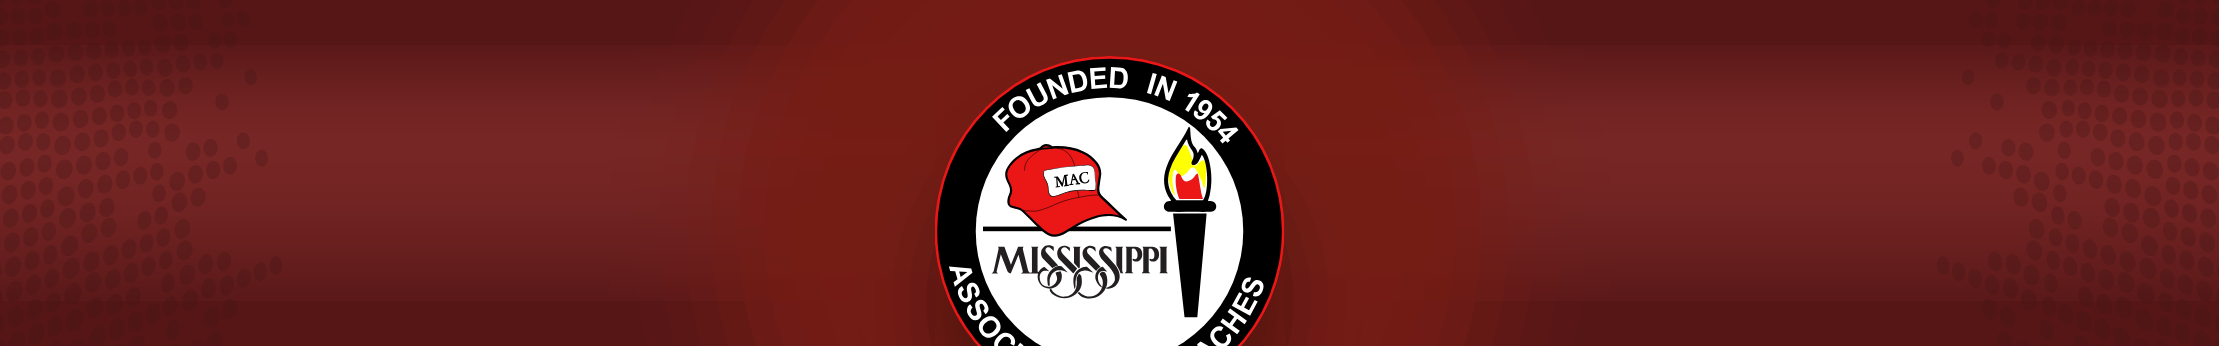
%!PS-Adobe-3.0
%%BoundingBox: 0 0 2219 346
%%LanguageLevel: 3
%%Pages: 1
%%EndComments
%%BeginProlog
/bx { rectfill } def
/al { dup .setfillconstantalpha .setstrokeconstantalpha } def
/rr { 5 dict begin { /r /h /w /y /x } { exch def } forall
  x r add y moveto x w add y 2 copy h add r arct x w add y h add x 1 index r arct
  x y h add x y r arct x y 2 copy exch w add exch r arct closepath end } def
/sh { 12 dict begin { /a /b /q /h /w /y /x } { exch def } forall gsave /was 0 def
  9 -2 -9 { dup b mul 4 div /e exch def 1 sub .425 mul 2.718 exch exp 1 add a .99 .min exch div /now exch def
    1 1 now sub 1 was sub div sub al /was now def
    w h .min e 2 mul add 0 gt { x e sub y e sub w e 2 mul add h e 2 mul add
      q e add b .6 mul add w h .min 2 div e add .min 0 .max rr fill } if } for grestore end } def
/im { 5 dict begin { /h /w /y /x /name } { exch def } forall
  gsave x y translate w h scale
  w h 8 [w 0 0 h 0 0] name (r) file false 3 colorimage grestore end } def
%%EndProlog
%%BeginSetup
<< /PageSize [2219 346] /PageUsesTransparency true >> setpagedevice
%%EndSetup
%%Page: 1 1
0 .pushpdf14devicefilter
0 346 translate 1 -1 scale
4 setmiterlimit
0.337 0.086 0.086 setrgbcolor
0 0 2219 346 bx
(image0.raw) 0 45 2219 256 im
(image1.raw) 0 0 282 346 im
0.459 0.11 0.078 setrgbcolor
725 -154 770 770 385 52.5 1 sh
0 setgray
935 126 350 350 175 35 0.3 sh
(image2.raw) 935 56 350 290 im
(image3.raw) 1937 0 282 346 im
.poppdf14devicefilter showpage
%%EOF
